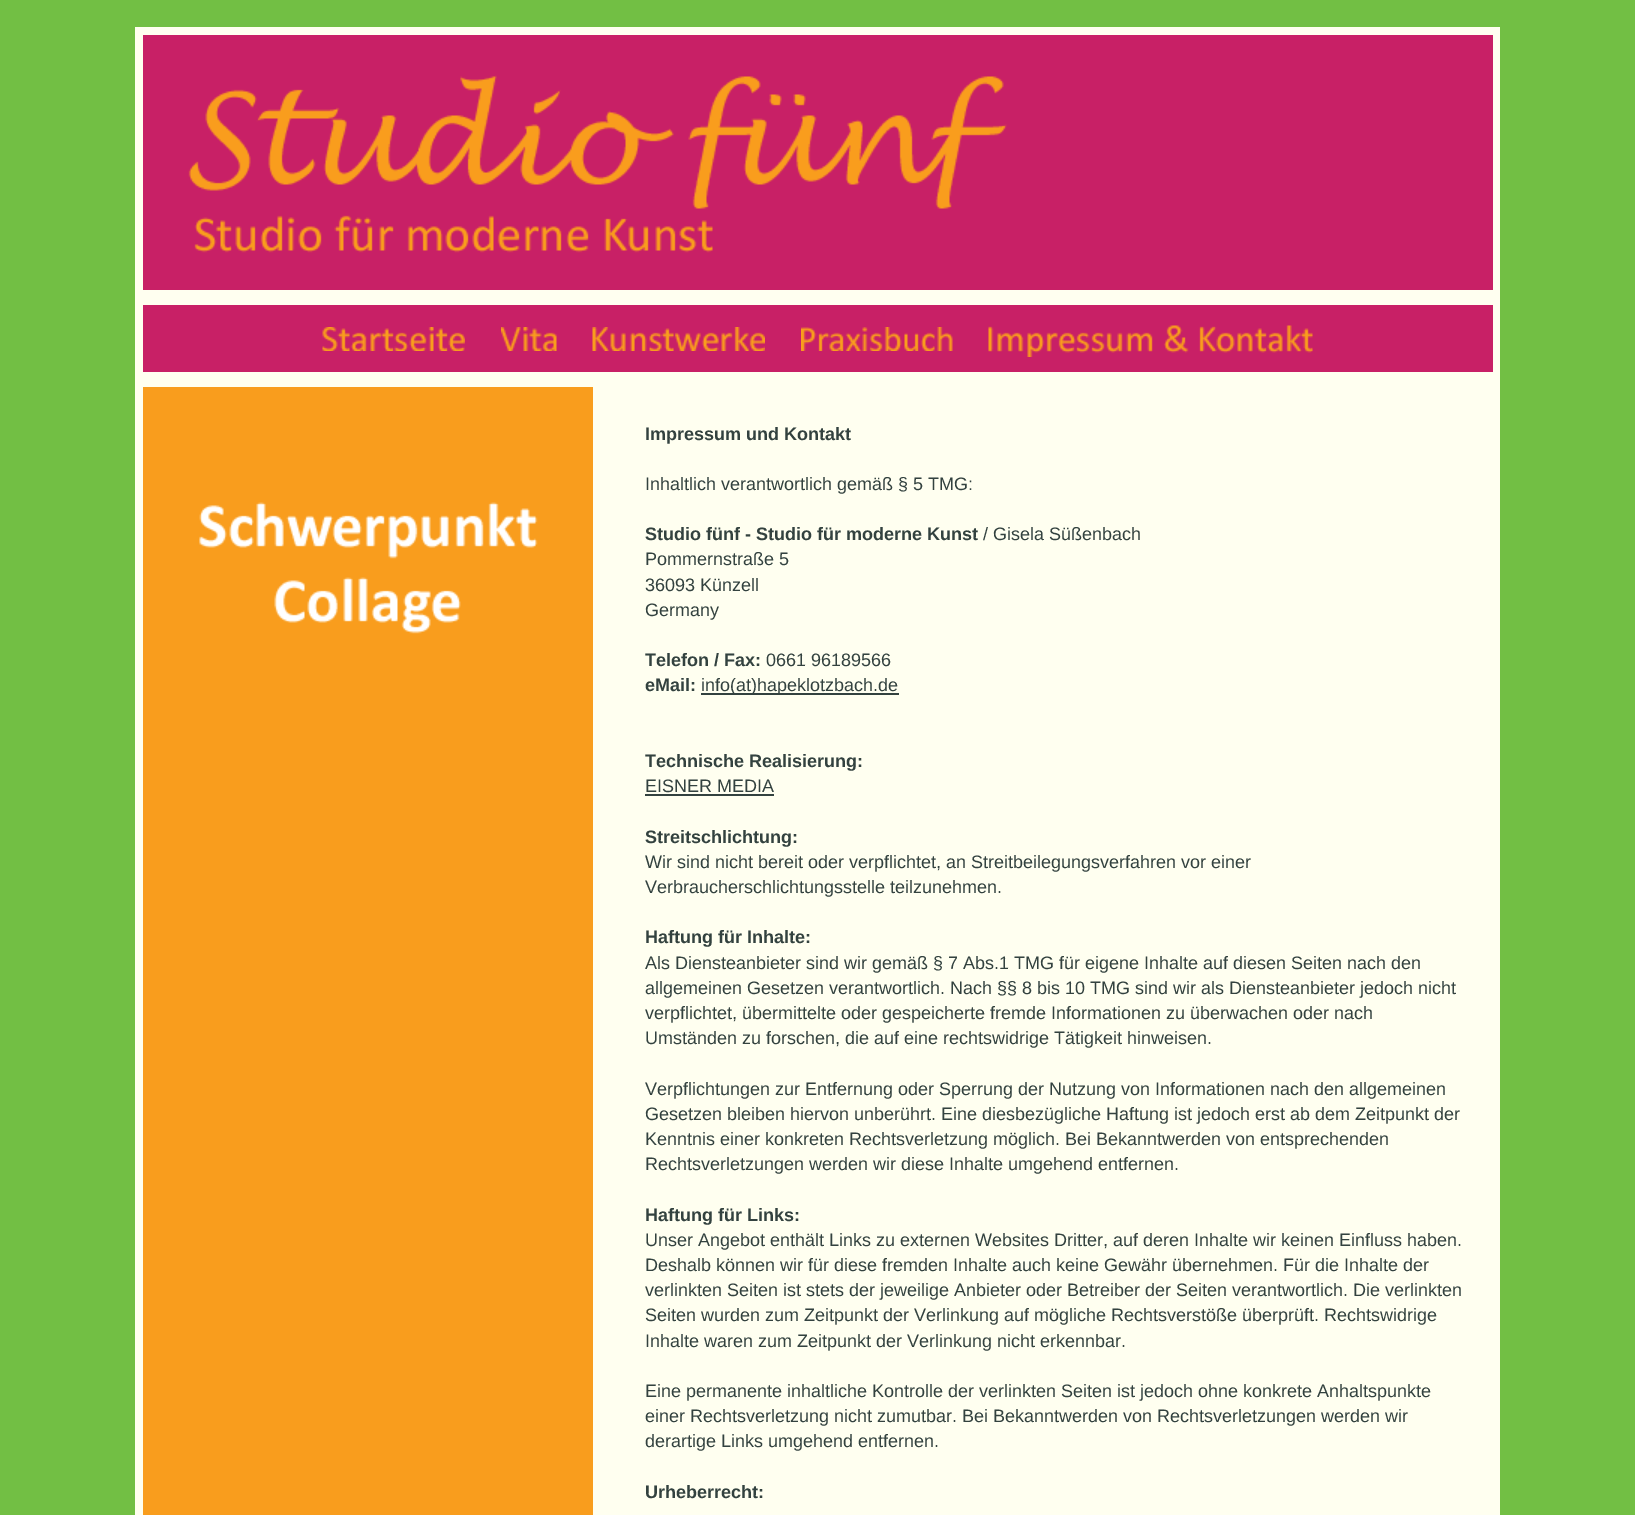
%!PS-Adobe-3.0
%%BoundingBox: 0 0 1635 1515
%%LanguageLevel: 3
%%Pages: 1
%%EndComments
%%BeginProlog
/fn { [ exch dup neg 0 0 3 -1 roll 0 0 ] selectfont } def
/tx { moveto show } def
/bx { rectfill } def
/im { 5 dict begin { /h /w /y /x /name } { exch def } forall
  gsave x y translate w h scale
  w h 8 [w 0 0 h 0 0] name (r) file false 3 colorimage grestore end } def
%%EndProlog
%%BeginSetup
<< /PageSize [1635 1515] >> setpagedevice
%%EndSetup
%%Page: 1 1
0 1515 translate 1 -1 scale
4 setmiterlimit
0.447 0.749 0.267 setrgbcolor
0 0 1635 1515 bx
1 1 0.941 setrgbcolor
135 27 1365 1488 bx
0.784 0.125 0.4 setrgbcolor
143 35 1350 255 bx
(image0.raw) 188 75 819 178 im
143 305 1350 67 bx
(image1.raw) 322 327 143 24 im
(image2.raw) 501 327 56 24 im
(image3.raw) 592 327 173 24 im
(image4.raw) 801 327 152 24 im
(image5.raw) 988 325 325 32 im
0.976 0.616 0.114 setrgbcolor
143 387 450 1128 bx
(image6.raw) 199 502 339 132 im
/LiberationSans-Bold 18 fn
0.2 0.259 0.247 setrgbcolor
(Impressum und Kontakt) 645 440 tx
/LiberationSans-Regular 18 fn
(Inhaltlich verantwortlich gemäß § 5 TMG:) 645 490 tx
/LiberationSans-Bold 18 fn
(Studio fünf - Studio für moderne Kunst) 645 540 tx
/LiberationSans-Regular 18 fn
(/ Gisela Süßenbach) 983 540 tx
(Pommernstraße 5) 645 565 tx
(36093 Künzell) 645 591 tx
(Germany) 645 616 tx
/LiberationSans-Bold 18 fn
(Telefon / Fax:) 645 666 tx
/LiberationSans-Regular 18 fn
(0661 96189566) 766 666 tx
/LiberationSans-Bold 18 fn
(eMail:) 645 691 tx
701 693 198 2 bx
/LiberationSans-Regular 18 fn
(info\(at\)hapeklotzbach.de) 701 691 tx
/LiberationSans-Bold 18 fn
(Technische Realisierung:) 645 767 tx
/LiberationSans-Regular 18 fn
(EISNER MEDIA) 645 792 tx
645 794 129 2 bx
/LiberationSans-Bold 18 fn
(Streitschlichtung:) 645 843 tx
/LiberationSans-Regular 18 fn
(Wir sind nicht bereit oder verpflichtet, an Streitbeilegungsverfahren vor einer) 645 868 tx
(Verbraucherschlichtungsstelle teilzunehmen.) 645 893 tx
/LiberationSans-Bold 18 fn
(Haftung für Inhalte:) 645 943 tx
/LiberationSans-Regular 18 fn
(Als Diensteanbieter sind wir gemäß § 7 Abs.1 TMG für eigene Inhalte auf diesen Seiten nach den) 645 969 tx
(allgemeinen Gesetzen verantwortlich. Nach §§ 8 bis 10 TMG sind wir als Diensteanbieter jedoch nicht) 645 994 tx
(verpflichtet, übermittelte oder gespeicherte fremde Informationen zu überwachen oder nach) 645 1019 tx
(Umständen zu forschen, die auf eine rechtswidrige Tätigkeit hinweisen.) 645 1044 tx
(Verpflichtungen zur Entfernung oder Sperrung der Nutzung von Informationen nach den allgemeinen) 645 1095 tx
(Gesetzen bleiben hiervon unberührt. Eine diesbezügliche Haftung ist jedoch erst ab dem Zeitpunkt der) 645 1120 tx
(Kenntnis einer konkreten Rechtsverletzung möglich. Bei Bekanntwerden von entsprechenden) 645 1145 tx
(Rechtsverletzungen werden wir diese Inhalte umgehend entfernen.) 645 1170 tx
/LiberationSans-Bold 18 fn
(Haftung für Links:) 645 1221 tx
/LiberationSans-Regular 18 fn
(Unser Angebot enthält Links zu externen Websites Dritter, auf deren Inhalte wir keinen Einfluss haben.) 645 1246 tx
(Deshalb können wir für diese fremden Inhalte auch keine Gewähr übernehmen. Für die Inhalte der) 645 1271 tx
(verlinkten Seiten ist stets der jeweilige Anbieter oder Betreiber der Seiten verantwortlich. Die verlinkten) 645 1296 tx
(Seiten wurden zum Zeitpunkt der Verlinkung auf mögliche Rechtsverstöße überprüft. Rechtswidrige) 645 1321 tx
(Inhalte waren zum Zeitpunkt der Verlinkung nicht erkennbar.) 645 1347 tx
(Eine permanente inhaltliche Kontrolle der verlinkten Seiten ist jedoch ohne konkrete Anhaltspunkte) 645 1397 tx
(einer Rechtsverletzung nicht zumutbar. Bei Bekanntwerden von Rechtsverletzungen werden wir) 645 1422 tx
(derartige Links umgehend entfernen.) 645 1447 tx
/LiberationSans-Bold 18 fn
(Urheberrecht:) 645 1498 tx
showpage
%%EOF
